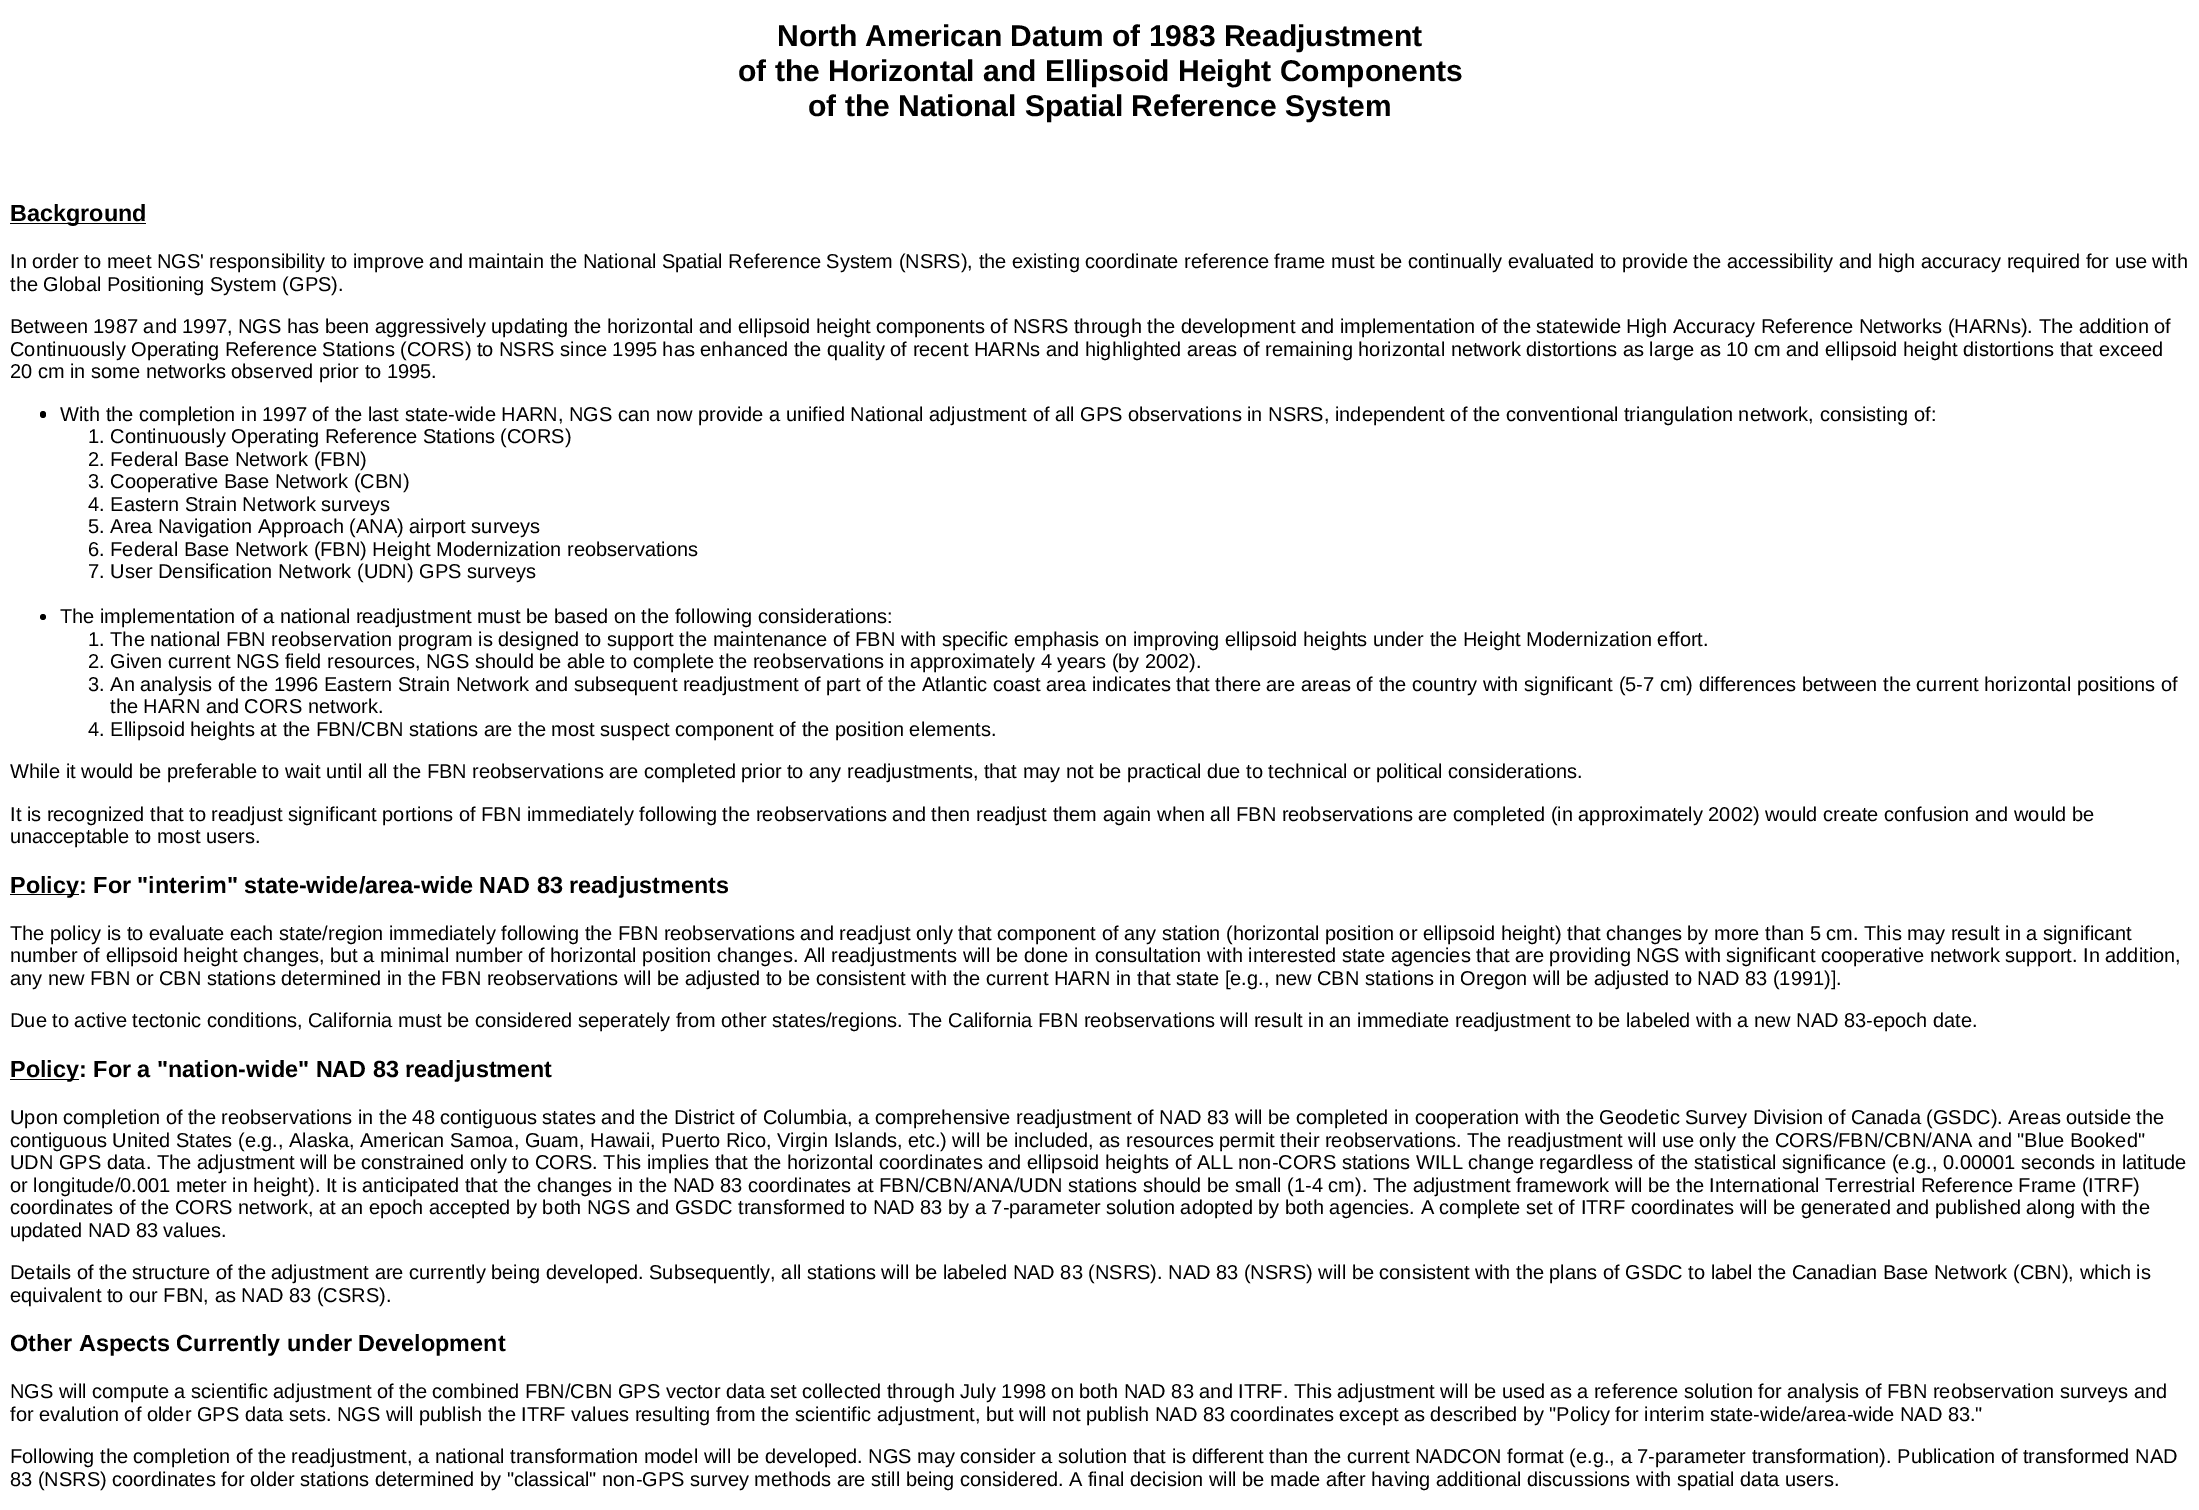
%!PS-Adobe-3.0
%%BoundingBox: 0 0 2199 1510
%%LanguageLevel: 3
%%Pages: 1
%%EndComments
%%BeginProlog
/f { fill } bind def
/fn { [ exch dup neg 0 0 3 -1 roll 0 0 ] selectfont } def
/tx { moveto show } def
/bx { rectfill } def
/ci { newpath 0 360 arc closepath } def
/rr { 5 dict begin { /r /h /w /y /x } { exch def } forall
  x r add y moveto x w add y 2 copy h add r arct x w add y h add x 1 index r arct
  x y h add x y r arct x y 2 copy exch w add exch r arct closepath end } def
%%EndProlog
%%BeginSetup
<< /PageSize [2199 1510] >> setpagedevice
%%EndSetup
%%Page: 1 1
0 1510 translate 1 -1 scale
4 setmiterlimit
1 setgray
0 0 2199 1510 bx
/LiberationSans-Bold 30 fn
0 setgray
(North American Datum of 1983 Readjustment) 777 46 tx
(of the Horizontal and Ellipsoid Height Components) 738 81 tx
(of the National Spatial Reference System) 808 116 tx
10 223 136 1 bx
/LiberationSans-Bold 23.4 fn
(Background) 10 221 tx
/LiberationSans-Regular 20 fn
(In order to meet NGS' responsibility to improve and maintain the National Spatial Reference System \(NSRS\), the existing coordinate reference frame must be continually evaluated to provide the accessibility and high accuracy required for use with) 10 268 tx
(the Global Positioning System \(GPS\).) 10 291 tx
(Between 1987 and 1997, NGS has been aggressively updating the horizontal and ellipsoid height components of NSRS through the development and implementation of the statewide High Accuracy Reference Networks \(HARNs\). The addition of) 10 333 tx
(Continuously Operating Reference Stations \(CORS\) to NSRS since 1995 has enhanced the quality of recent HARNs and highlighted areas of remaining horizontal network distortions as large as 10 cm and ellipsoid height distortions that exceed) 10 356 tx
(20 cm in some networks observed prior to 1995.) 10 378 tx
40 411 6 7 3 rr f
(With the completion in 1997 of the last state-wide HARN, NGS can now provide a unified National adjustment of all GPS observations in NSRS, independent of the conventional triangulation network, consisting of:) 60 421 tx
(1. Continuously Operating Reference Stations \(CORS\)) 88 443 tx
(2. Federal Base Network \(FBN\)) 88 466 tx
(3. Cooperative Base Network \(CBN\)) 88 488 tx
(4. Eastern Strain Network surveys) 88 511 tx
(5. Area Navigation Approach \(ANA\) airport surveys) 88 533 tx
(6. Federal Base Network \(FBN\) Height Modernization reobservations) 88 556 tx
(7. User Densification Network \(UDN\) GPS surveys) 88 578 tx
43 617 3 ci f
(The implementation of a national readjustment must be based on the following considerations:) 60 623 tx
(1. The national FBN reobservation program is designed to support the maintenance of FBN with specific emphasis on improving ellipsoid heights under the Height Modernization effort.) 88 646 tx
(2. Given current NGS field resources, NGS should be able to complete the reobservations in approximately 4 years \(by 2002\).) 88 668 tx
(3. An analysis of the 1996 Eastern Strain Network and subsequent readjustment of part of the Atlantic coast area indicates that there are areas of the country with significant \(5-7 cm\) differences between the current horizontal positions of) 88 691 tx
(the HARN and CORS network.) 110 713 tx
(4. Ellipsoid heights at the FBN/CBN stations are the most suspect component of the position elements.) 88 736 tx
(While it would be preferable to wait until all the FBN reobservations are completed prior to any readjustments, that may not be practical due to technical or political considerations.) 10 778 tx
(It is recognized that to readjust significant portions of FBN immediately following the reobservations and then readjust them again when all FBN reobservations are completed \(in approximately 2002\) would create confusion and would be) 10 821 tx
(unacceptable to most users.) 10 843 tx
10 894 69 1 bx
/LiberationSans-Bold 23.4 fn
(Policy: For "interim" state-wide/area-wide NAD 83 readjustments) 10 893 tx
/LiberationSans-Regular 20 fn
(The policy is to evaluate each state/region immediately following the FBN reobservations and readjust only that component of any station \(horizontal position or ellipsoid height\) that changes by more than 5 cm. This may result in a significant) 10 940 tx
(number of ellipsoid height changes, but a minimal number of horizontal position changes. All readjustments will be done in consultation with interested state agencies that are providing NGS with significant cooperative network support. In addition,) 10 962 tx
(any new FBN or CBN stations determined in the FBN reobservations will be adjusted to be consistent with the current HARN in that state [e.g., new CBN stations in Oregon will be adjusted to NAD 83 \(1991\)].) 10 985 tx
(Due to active tectonic conditions, California must be considered seperately from other states/regions. The California FBN reobservations will result in an immediate readjustment to be labeled with a new NAD 83-epoch date.) 10 1027 tx
10 1079 69 1 bx
/LiberationSans-Bold 23.4 fn
(Policy: For a "nation-wide" NAD 83 readjustment) 10 1077 tx
/LiberationSans-Regular 20 fn
(Upon completion of the reobservations in the 48 contiguous states and the District of Columbia, a comprehensive readjustment of NAD 83 will be completed in cooperation with the Geodetic Survey Division of Canada \(GSDC\). Areas outside the) 10 1124 tx
(contiguous United States \(e.g., Alaska, American Samoa, Guam, Hawaii, Puerto Rico, Virgin Islands, etc.\) will be included, as resources permit their reobservations. The readjustment will use only the CORS/FBN/CBN/ANA and "Blue Booked") 10 1147 tx
(UDN GPS data. The adjustment will be constrained only to CORS. This implies that the horizontal coordinates and ellipsoid heights of ALL non-CORS stations WILL change regardless of the statistical significance \(e.g., 0.00001 seconds in latitude) 10 1169 tx
(or longitude/0.001 meter in height\). It is anticipated that the changes in the NAD 83 coordinates at FBN/CBN/ANA/UDN stations should be small \(1-4 cm\). The adjustment framework will be the International Terrestrial Reference Frame \(ITRF\)) 10 1192 tx
(coordinates of the CORS network, at an epoch accepted by both NGS and GSDC transformed to NAD 83 by a 7-parameter solution adopted by both agencies. A complete set of ITRF coordinates will be generated and published along with the) 10 1214 tx
(updated NAD 83 values.) 10 1237 tx
(Details of the structure of the adjustment are currently being developed. Subsequently, all stations will be labeled NAD 83 \(NSRS\). NAD 83 \(NSRS\) will be consistent with the plans of GSDC to label the Canadian Base Network \(CBN\), which is) 10 1279 tx
(equivalent to our FBN, as NAD 83 \(CSRS\).) 10 1302 tx
/LiberationSans-Bold 23.4 fn
(Other Aspects Currently under Development) 10 1351 tx
/LiberationSans-Regular 20 fn
(NGS will compute a scientific adjustment of the combined FBN/CBN GPS vector data set collected through July 1998 on both NAD 83 and ITRF. This adjustment will be used as a reference solution for analysis of FBN reobservation surveys and) 10 1398 tx
(for evalution of older GPS data sets. NGS will publish the ITRF values resulting from the scientific adjustment, but will not publish NAD 83 coordinates except as described by "Policy for interim state-wide/area-wide NAD 83.") 10 1421 tx
(Following the completion of the readjustment, a national transformation model will be developed. NGS may consider a solution that is different than the current NADCON format \(e.g., a 7-parameter transformation\). Publication of transformed NAD) 10 1463 tx
(83 \(NSRS\) coordinates for older stations determined by "classical" non-GPS survey methods are still being considered. A final decision will be made after having additional discussions with spatial data users.) 10 1486 tx
showpage
%%EOF
